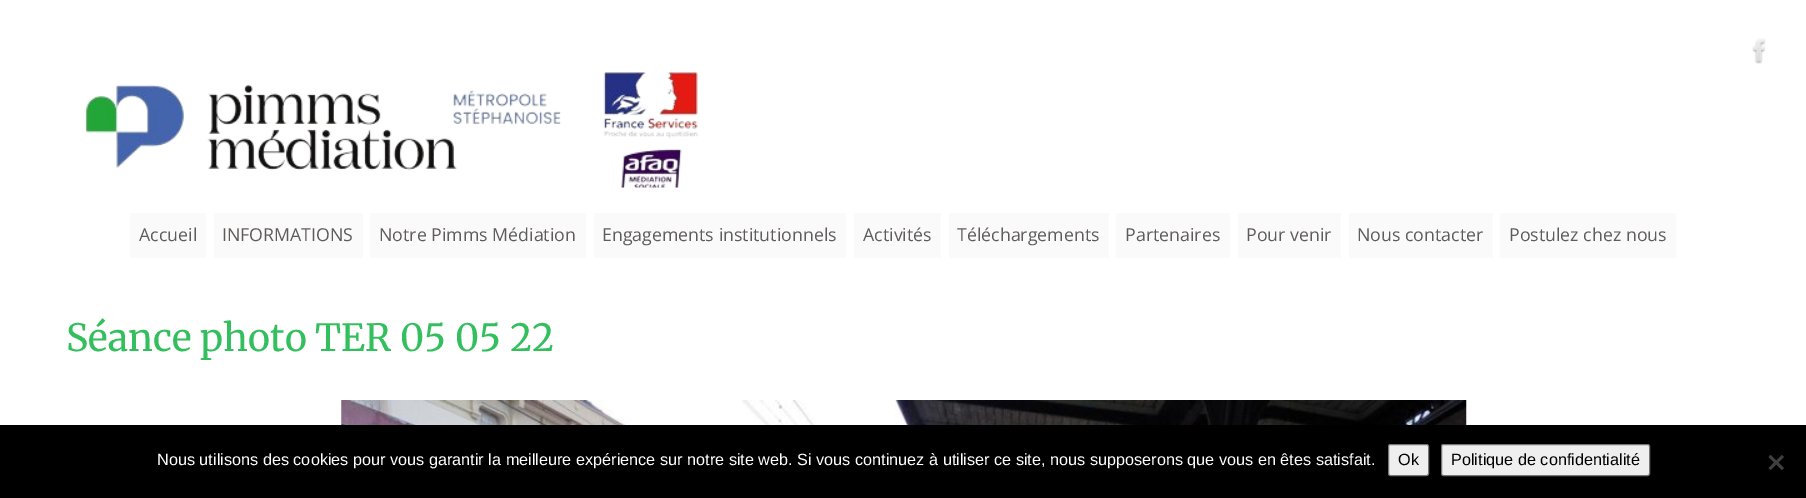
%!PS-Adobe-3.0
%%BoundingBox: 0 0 1806 498
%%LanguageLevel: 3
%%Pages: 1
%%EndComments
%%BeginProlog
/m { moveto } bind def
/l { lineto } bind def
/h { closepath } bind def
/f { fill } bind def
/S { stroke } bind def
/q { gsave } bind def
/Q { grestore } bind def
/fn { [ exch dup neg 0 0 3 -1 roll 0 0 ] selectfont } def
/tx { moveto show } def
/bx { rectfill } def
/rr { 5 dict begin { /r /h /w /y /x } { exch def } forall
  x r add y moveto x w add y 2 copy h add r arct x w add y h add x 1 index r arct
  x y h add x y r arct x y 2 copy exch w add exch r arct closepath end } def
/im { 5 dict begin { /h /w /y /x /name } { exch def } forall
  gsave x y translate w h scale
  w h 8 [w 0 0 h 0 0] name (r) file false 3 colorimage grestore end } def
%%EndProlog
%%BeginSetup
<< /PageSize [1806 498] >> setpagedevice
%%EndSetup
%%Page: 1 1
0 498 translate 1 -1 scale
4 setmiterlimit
1 setgray
0 0 1806 498 bx
(image0.raw) 1752 38 14 26 im
(image1.raw) 85 71 613 117 im
0.98 setgray
130 213 76 45 bx
/OpenSans-Regular 17.75 fn
0.373 0.357 0.357 setrgbcolor
(Accueil) 139 241 tx
0.98 setgray
214 213 149 45 bx
0.373 0.357 0.357 setrgbcolor
(INFORMATIONS) 222 241 tx
0.98 setgray
370 213 216 45 bx
0.373 0.357 0.357 setrgbcolor
(Notre Pimms Médiation) 379 241 tx
0.98 setgray
594 213 252 45 bx
0.373 0.357 0.357 setrgbcolor
(Engagements institutionnels) 602 241 tx
0.98 setgray
854 213 87 45 bx
0.373 0.357 0.357 setrgbcolor
(Activités) 863 241 tx
0.98 setgray
949 213 160 45 bx
0.373 0.357 0.357 setrgbcolor
(Téléchargements) 957 241 tx
0.98 setgray
1116 213 114 45 bx
0.373 0.357 0.357 setrgbcolor
(Partenaires) 1125 241 tx
0.98 setgray
1238 213 103 45 bx
0.373 0.357 0.357 setrgbcolor
(Pour venir) 1246 241 tx
0.98 setgray
1349 213 144 45 bx
0.373 0.357 0.357 setrgbcolor
(Nous contacter) 1357 241 tx
0.98 setgray
1500 213 176 45 bx
0.373 0.357 0.357 setrgbcolor
(Postulez chez nous) 1509 241 tx
/Merriweather-Regular 37.5 fn
0.204 0.749 0.369 setrgbcolor
(Séance photo TER 05 05 22) 66 351 tx
(image2.raw) 341 400 1126 25 im
0 setgray
0 425 1806 73 bx
/LiberationSans-Regular 16.25 fn
1 setgray
(Nous utilisons des cookies pour vous garantir la meilleure expérience sur notre site web. Si vous continuez à utiliser ce site, nous supposerons que vous en êtes satisfait.) 157 465 tx
0.937 setgray
1388.5 444.5 40 31 2 rr q f Q
0.463 setgray
S
0 setgray
(Ok) 1398 465 tx
0.937 setgray
1441.5 444.5 208 31 2 rr q f Q
0.463 setgray
S
0 setgray
(Politique de confidentialité) 1451 465 tx
0.251 setgray
1782 455 m 1784 457 l 1770.5 470 l 1768.5 468 l h f
1768.5 457 m 1770.5 455 l 1784 468 l 1782 470 l h f
showpage
%%EOF
